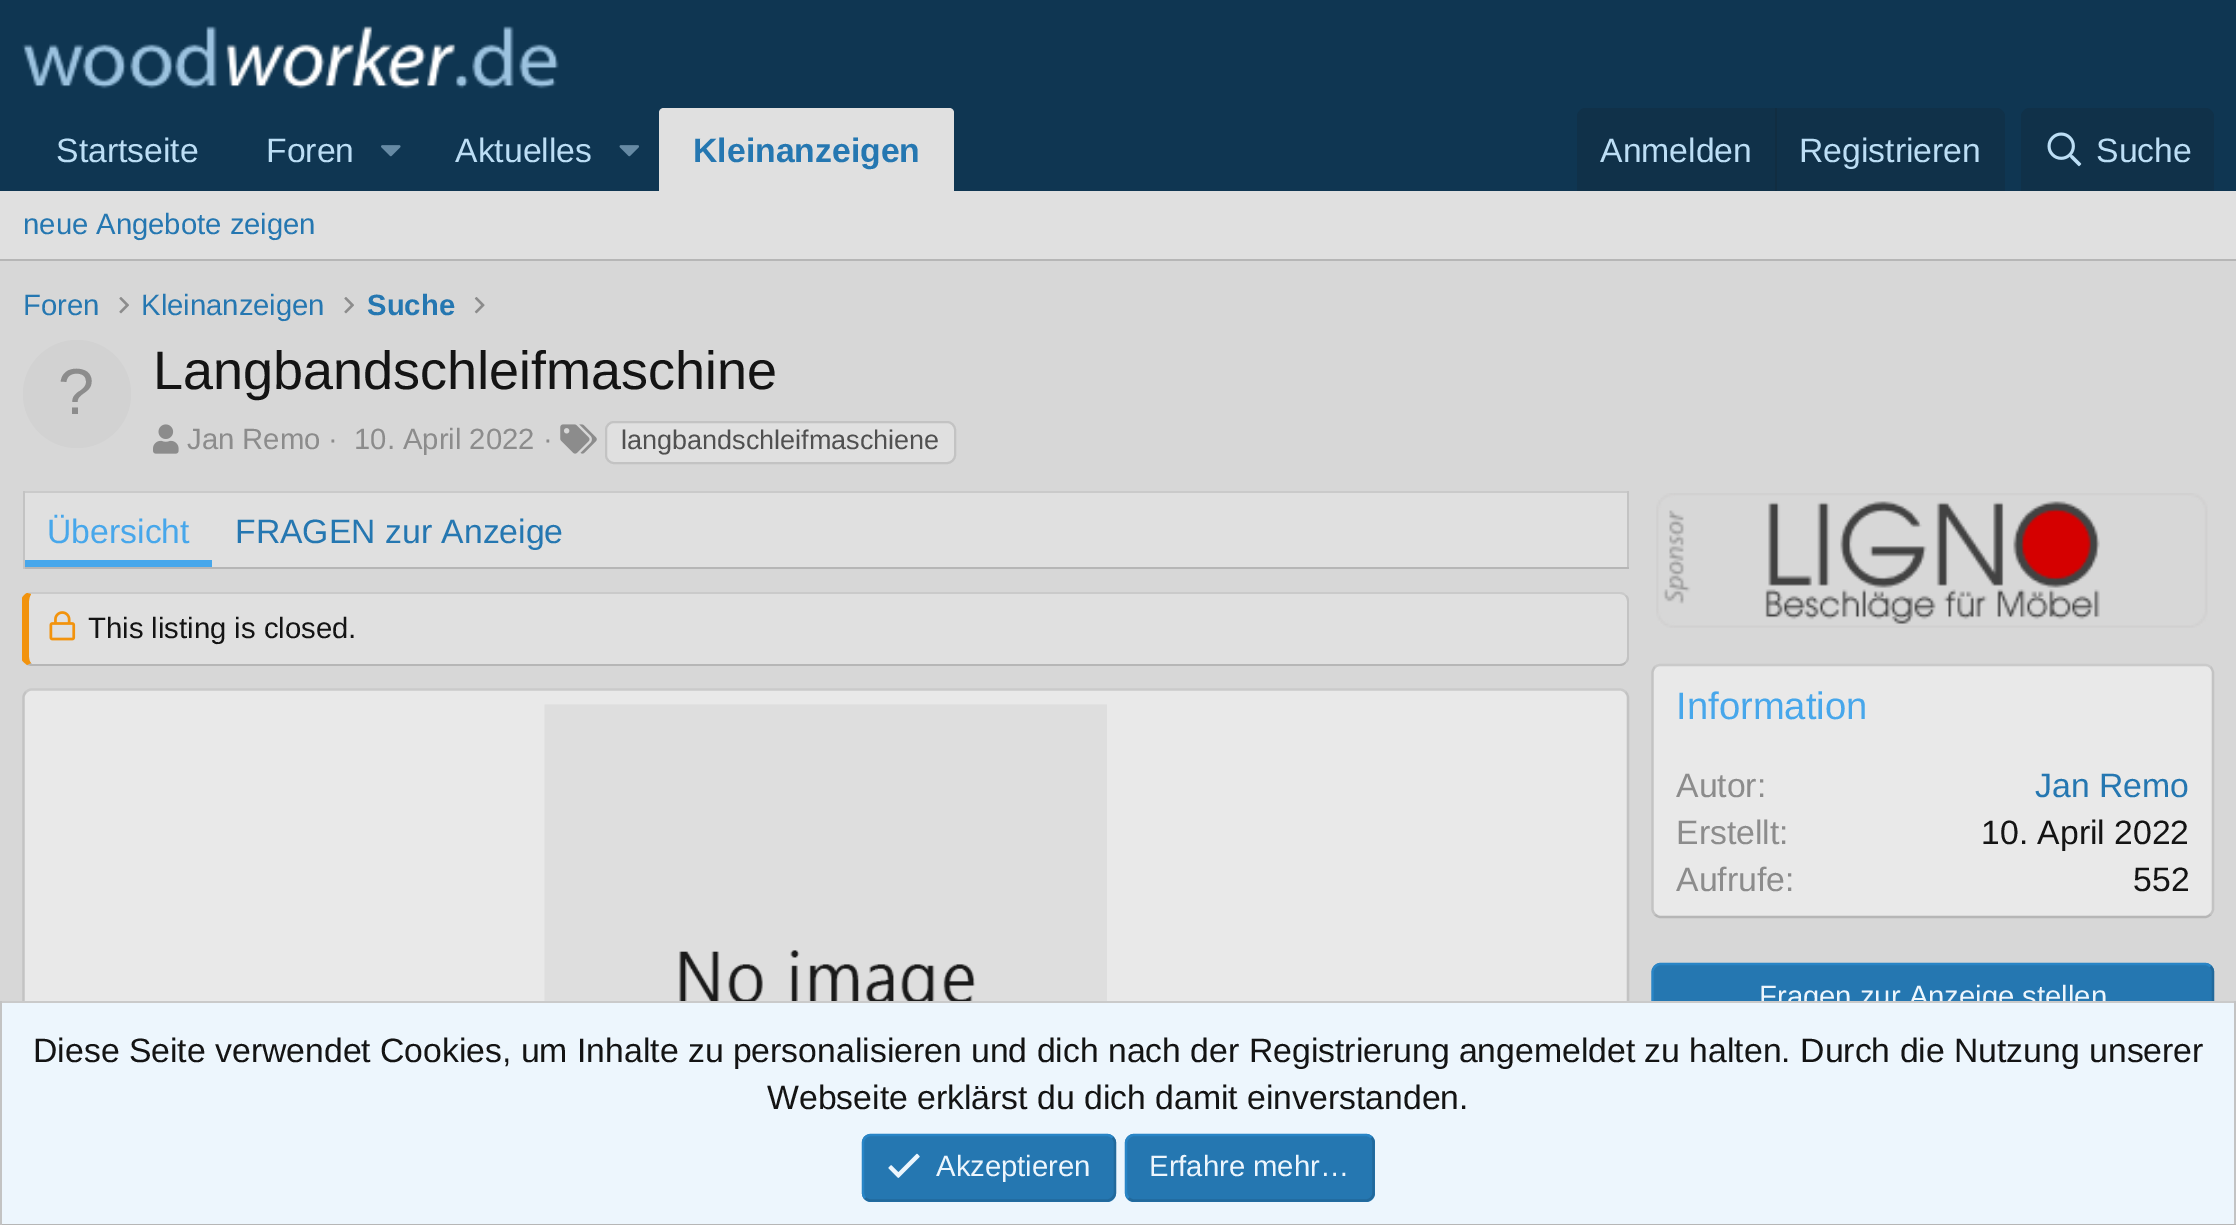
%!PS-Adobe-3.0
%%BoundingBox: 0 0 2236 1225
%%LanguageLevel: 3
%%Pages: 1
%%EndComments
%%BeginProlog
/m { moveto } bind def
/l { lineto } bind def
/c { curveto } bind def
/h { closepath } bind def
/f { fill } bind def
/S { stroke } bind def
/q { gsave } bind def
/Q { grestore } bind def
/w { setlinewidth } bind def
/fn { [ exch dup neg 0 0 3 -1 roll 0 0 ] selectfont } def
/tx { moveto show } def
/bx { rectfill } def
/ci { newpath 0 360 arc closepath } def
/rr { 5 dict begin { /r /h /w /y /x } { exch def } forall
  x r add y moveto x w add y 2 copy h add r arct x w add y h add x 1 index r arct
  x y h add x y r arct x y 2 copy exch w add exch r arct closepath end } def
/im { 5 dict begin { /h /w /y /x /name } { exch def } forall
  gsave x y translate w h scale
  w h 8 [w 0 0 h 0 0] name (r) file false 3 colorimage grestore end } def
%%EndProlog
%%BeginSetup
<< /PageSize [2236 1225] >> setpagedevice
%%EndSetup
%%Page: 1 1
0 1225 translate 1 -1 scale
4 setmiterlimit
0.843 setgray
0 0 2236 1225 bx
0.059 0.212 0.322 setrgbcolor
0 0 2236 191 bx
(image0.raw) 22 26 537 63 im
/LiberationSans-Regular 33.75 fn
0.737 0.871 0.961 setrgbcolor
(Startseite) 56 162 tx
(Foren) 266 162 tx
(image1.raw) 381 145 20 12 im
(Aktuelles) 455 162 tx
(image2.raw) 619 145 20 12 im
0.878 setgray
664 108 m 949 108 l 952 108 954 110 954 113 c 954 191 l 659 191 l 659 113 l 659 110 661 108 664 108 c h f
/LiberationSans-Bold 33.75 fn
0.145 0.467 0.694 setrgbcolor
(Kleinanzeigen) 693 162 tx
0.063 0.192 0.286 setrgbcolor
1586 108 m 1996 108 l 2001 108 2005 112 2005 117 c 2005 191 l 1577 191 l 1577 117 l 1577 112 1581 108 1586 108 c h f
/LiberationSans-Regular 33.75 fn
0.737 0.871 0.961 setrgbcolor
(Anmelden) 1600 162 tx
0.067 0.176 0.255 setrgbcolor
1775 108 2 83 bx
0.737 0.871 0.961 setrgbcolor
(Registrieren) 1799 162 tx
0.063 0.192 0.286 setrgbcolor
2030 108 m 2205 108 l 2210 108 2214 112 2214 117 c 2214 191 l 2021 191 l 2021 117 l 2021 112 2025 108 2030 108 c h f
(image3.raw) 2047 132 35 35 im
0.737 0.871 0.961 setrgbcolor
(Suche) 2096 162 tx
0.878 setgray
0 191 2236 68 bx
0.714 setgray
0 259 2236 2 bx
/LiberationSans-Regular 29.25 fn
0.145 0.467 0.694 setrgbcolor
(neue Angebote zeigen) 23 234 tx
(Foren) 23 315 tx
(image4.raw) 119 297 10 17 im
(Kleinanzeigen) 141 315 tx
(image4.raw) 344 297 10 17 im
/LiberationSans-Bold 29.25 fn
(Suche) 367 315 tx
(image5.raw) 474 297 11 17 im
0.824 setgray
77 394 54 ci f
/LiberationSans-Regular 65 fn
0.549 setgray
(?) 58 414 tx
/LiberationSans-Regular 54 fn
0.078 setgray
(Langbandschleifmaschine) 153 389 tx
(image6.raw) 153 424 26 30 im
/LiberationSans-Regular 29.25 fn
0.549 setgray
(Jan Remo ·) 187 449 tx
(10. April 2022 ·) 354 449 tx
(image7.raw) 560 424 37 30 im
0.878 setgray
606 422 349 41 8 rr q f Q
0.765 setgray
2 w
S
/LiberationSans-Regular 27 fn
0.314 setgray
(langbandschleifmaschiene) 621 449 tx
0.878 setgray
25 493 1602 74 bx
0.792 setgray
23 491 1606 2 bx
0.765 setgray
1627 491 2 78 bx
0.714 setgray
23 567 1606 2 bx
0.765 setgray
23 491 2 78 bx
0.278 0.655 0.922 setrgbcolor
25 560 187 7 bx
/LiberationSans-Regular 33.75 fn
(Übersicht) 47 543 tx
0.145 0.467 0.694 setrgbcolor
(FRAGEN zur Anzeige) 235 543 tx
0.878 setgray
32 594 m 1620 594 l 1624 594 1627 597 1627 601 c 1627 657 l 1627 661 1624 664 1620 664 c 32 664 l 30 664 29 661 29 657 c 29 601 l 29 597 30 594 32 594 c h f
0.792 setgray
32 592 m 27 593 l 31 594 l 32 594 l 1620 594 l 1622 594 1624 595 1625 596 c 1626 595 l 1625 593 1622 592 1620 592 c h f
0.765 setgray
1626 595 m 1628 596 1629 598 1629 601 c 1629 657 l 1629 660 1628 662 1626 663 c 1625 662 l 1626 661 1627 659 1627 657 c 1627 601 l 1627 599 1626 597 1625 596 c h f
0.714 setgray
32 666 m 1620 666 l 1622 666 1625 665 1626 663 c 1625 662 l 1624 663 1622 664 1620 664 c 32 664 l 31 663 l 27 665 l 28 665 30 666 32 666 c h f
0.949 0.576 0.051 setrgbcolor
22 598 m 23 596 25 594 27 593 c 31 594 l 30 596 29 598 29 601 c 29 657 l 29 660 30 662 31 663 c 27 665 l 25 663 23 662 22 660 c h f
(image8.raw) 49 611 27 30 im
/LiberationSans-Regular 29.25 fn
0.078 setgray
(This listing is closed.) 88 638 tx
0.914 setgray
23 689 1606 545 9 rr f
0.792 setgray
2.2 w
26 692 m 27.5 690.5 29.5 689.5 31.5 689.5 c 1620 689.5 l 1622 689.5 1624 690.5 1625.5 692 c S
0.765 setgray
1625.5 692 m 1627 693.5 1628 695.5 1628 697.5 c 1628 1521 l 1628 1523 1627 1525 1625.5 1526.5 c S
26 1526.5 m 24.5 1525 23.5 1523 23.5 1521 c 23.5 697.5 l 23.5 695.5 24.5 693.5 26 692 c S
(image9.raw) 544 704 563 297 im
(image10.raw) 1656 493 552 135 im
0.914 setgray
1652 664 562 254 9 rr f
0.792 setgray
1655 667 m 1656.5 665.5 1658.5 665 1660.5 665 c 2205 665 l 2207 665 2209 665.5 2210.5 667 c S
0.765 setgray
2210.5 667 m 2212 668.5 2213 670.5 2213 673 c 2213 909 l 2213 911 2212 913 2210.5 914.5 c S
0.714 setgray
2210.5 914.5 m 2209 916 2207 917 2205 917 c 1660.5 917 l 1658.5 917 1656.5 916 1655 914.5 c S
0.765 setgray
1655 914.5 m 1653.5 913 1652.5 911 1652.5 909 c 1652.5 673 l 1652.5 670.5 1653.5 668.5 1655 667 c S
/LiberationSans-Regular 38.25 fn
0.278 0.655 0.922 setrgbcolor
(Information) 1676 719 tx
/LiberationSans-Regular 33.75 fn
0.549 setgray
(Autor:) 1676 797 tx
0.145 0.467 0.694 setrgbcolor
(Jan Remo) 2035 797 tx
0.549 setgray
(Erstellt:) 1676 844 tx
0.078 setgray
(10. April 2022) 1981 844 tx
0.549 setgray
(Aufrufe:) 1676 891 tx
0.078 setgray
(552) 2133 891 tx
0.145 0.467 0.694 setrgbcolor
1652 963 562 68 9 rr f
0.129 0.412 0.612 setrgbcolor
2210.5 966.5 m 2212 968 2213 970 2213 972 c 2213 1021.5 l 2213 1023.5 2212 1025.5 2210.5 1027 c 2209 1028.5 2207 1029.5 2205 1029.5 c 1660.5 1029.5 l 1658.5 1029.5 1656.5 1028.5 1655 1027 c S
0.161 0.522 0.776 setrgbcolor
1655 1027 m 1653.5 1025.5 1652.5 1023.5 1652.5 1021.5 c 1652.5 972 l 1652.5 970 1653.5 968 1655 966.5 c 1656.5 965 1658.5 964 1660.5 964 c 2205 964 l 2207 964 2209 965 2210.5 966.5 c S
/LiberationSans-Regular 29.25 fn
0.929 0.965 0.992 setrgbcolor
(Fragen zur Anzeige stellen) 1759 1006 tx
2 1003 2232 221 bx
0.792 setgray
0 1001 2236 2 bx
0.765 setgray
2234 1001 2 224 bx
0.714 setgray
0 1224 2236 1 bx
0.765 setgray
0 1001 2 224 bx
/LiberationSans-Regular 33.75 fn
0.078 setgray
(Diese Seite verwendet Cookies, um Inhalte zu personalisieren und dich nach der Registrierung angemeldet zu halten. Durch die Nutzung unserer) 33 1062 tx
(Webseite erklärst du dich damit einverstanden.) 767 1109 tx
0.145 0.467 0.694 setrgbcolor
862 1134 254 68 9 rr f
0.129 0.412 0.612 setrgbcolor
1112.5 1137.5 m 1114 1139 1115 1141 1115 1143 c 1115 1192.5 l 1115 1194.5 1114 1196.5 1112.5 1198 c 1111 1199.5 1109 1200.5 1107 1200.5 c 871 1200.5 l 868.5 1200.5 866.5 1199.5 865 1198 c S
0.161 0.522 0.776 setrgbcolor
865 1198 m 863.5 1196.5 863 1194.5 863 1192.5 c 863 1143 l 863 1141 863.5 1139 865 1137.5 c 866.5 1136 868.5 1135 871 1135 c 1107 1135 l 1109 1135 1111 1136 1112.5 1137.5 c S
(image11.raw) 888 1153 32 25 im
/LiberationSans-Regular 29.25 fn
0.929 0.965 0.992 setrgbcolor
(Akzeptieren) 936 1176 tx
0.145 0.467 0.694 setrgbcolor
1125 1134 250 68 9 rr f
0.129 0.412 0.612 setrgbcolor
1371.5 1137.5 m 1373 1139 1373.5 1141 1373.5 1143 c 1373.5 1192.5 l 1373.5 1194.5 1373 1196.5 1371.5 1198 c 1370 1199.5 1368 1200.5 1366 1200.5 c 1134 1200.5 l 1132 1200.5 1130 1199.5 1128.5 1198 c S
0.161 0.522 0.776 setrgbcolor
1128.5 1198 m 1127 1196.5 1126 1194.5 1126 1192.5 c 1126 1143 l 1126 1141 1127 1139 1128.5 1137.5 c 1130 1136 1132 1135 1134 1135 c 1366 1135 l 1368 1135 1370 1136 1371.5 1137.5 c S
0.929 0.965 0.992 setrgbcolor
(Erfahre mehr…) 1149 1176 tx
showpage
%%EOF
